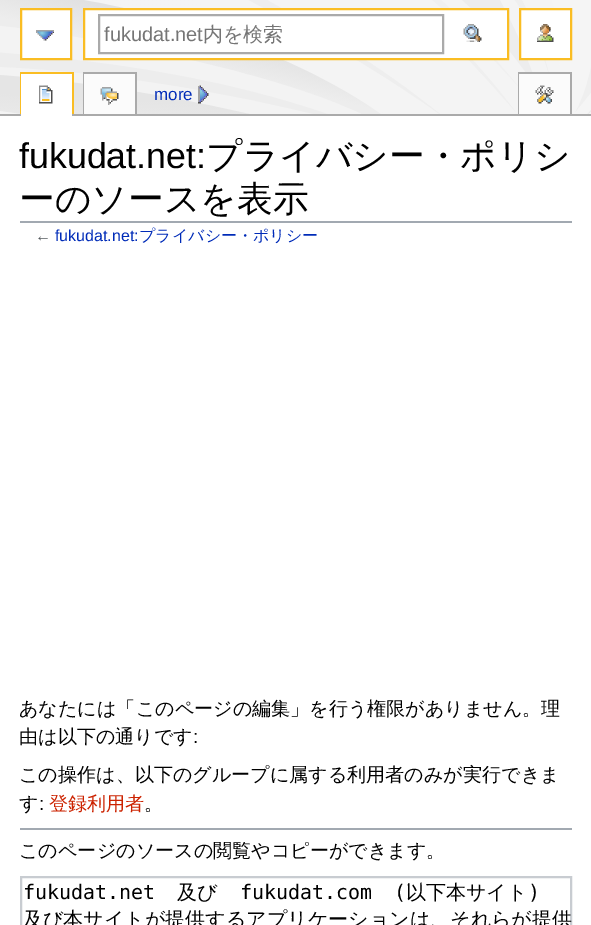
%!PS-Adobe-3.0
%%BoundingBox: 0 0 591 925
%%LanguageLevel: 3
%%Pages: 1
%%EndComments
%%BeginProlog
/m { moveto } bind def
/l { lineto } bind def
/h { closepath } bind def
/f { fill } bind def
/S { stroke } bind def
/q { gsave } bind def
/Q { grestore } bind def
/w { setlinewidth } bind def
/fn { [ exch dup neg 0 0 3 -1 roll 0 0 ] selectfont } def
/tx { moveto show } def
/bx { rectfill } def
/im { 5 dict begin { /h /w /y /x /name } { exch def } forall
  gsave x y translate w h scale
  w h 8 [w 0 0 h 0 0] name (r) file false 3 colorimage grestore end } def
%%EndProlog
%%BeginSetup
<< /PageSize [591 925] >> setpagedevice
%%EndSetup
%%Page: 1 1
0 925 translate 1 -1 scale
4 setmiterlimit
1 setgray
0 0 591 925 bx
(image0.raw) 0 0 591 114 im
22 10 48 48 bx
(image1.raw) 36 30 18 11 im
0.98 0.741 0.137 setrgbcolor
2 w
21 9 50 50 rectstroke
1 setgray
84 9 m 508 9 l 508 59 l 84 59 l h q f Q
0.98 0.741 0.137 setrgbcolor
S
0.667 setgray
99 15 344 38 rectstroke
/LiberationSans-Regular 20 fn
0.459 setgray
(fukudat.net) 104 41 tx
/WenQuanYiZenHei-Medium 20 fn
(内を検索) 203 41 tx
(image2.raw) 463 24 19 18 im
1 setgray
521 10 49 48 bx
(image3.raw) 537 24 17 18 im
0.98 0.741 0.137 setrgbcolor
520 9 51 50 rectstroke
20 72 54 2 bx
72 72 2 44 bx
20 72 2 44 bx
0.667 setgray
83 72 54 2 bx
135 72 2 44 bx
83 72 2 44 bx
518 72 54 2 bx
570 72 2 44 bx
518 72 2 44 bx
0 114 591 2 bx
1 setgray
21 74 51 42 bx
(image4.raw) 39 85 14 19 im
0.984 setgray
84 74 51 40 bx
(image5.raw) 100 87 19 18 im
(image6.raw) 198 85 11 19 im
/LiberationSans-Regular 17 fn
0 0.169 0.722 setrgbcolor
(more) 154 100 tx
0.984 setgray
519 74 51 40 bx
(image7.raw) 535 85 19 19 im
0.635 0.663 0.694 setrgbcolor
20 221 552 2 bx
/LiberationSans-Regular 35.75 fn
0 setgray
(fukudat.net:) 19 168 tx
/WenQuanYiZenHei-Medium 35.75 fn
(プライバシー・ポリシ) 206 168 tx
(ーのソースを表示) 19 211 tx
/LiberationSans-Regular 16 fn
0.329 0.349 0.365 setrgbcolor
(←) 35 241 tx
0 0.169 0.722 setrgbcolor
(fukudat.net:) 55 241 tx
/WenQuanYiZenHei-Medium 16 fn
(プライバシー・ポリシー) 139 241 tx
/WenQuanYiZenHei-Medium 19.05 fn
0 setgray
(あなたには「このページの編集」を行う権限がありません。理) 19 715 tx
(由は以下の通りです) 19 743 tx
/LiberationSans-Regular 19.05 fn
(:) 193 743 tx
/WenQuanYiZenHei-Medium 19.05 fn
(この操作は、以下のグループに属する利用者のみが実行できま) 19 781 tx
(す) 19 810 tx
/LiberationSans-Regular 19.05 fn
(:) 39 810 tx
/WenQuanYiZenHei-Medium 19.05 fn
0.8 0.133 0 setrgbcolor
(登録利用者) 49 810 tx
0 setgray
(。) 144 810 tx
0.635 0.663 0.694 setrgbcolor
20 828 552 2 bx
0 setgray
(このページのソースの閲覧やコピーができます。) 19 857 tx
0.784 0.8 0.82 setrgbcolor
21 877 550 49 rectstroke
/DejaVuSansMono-Regular 20 fn
0 setgray
(fukudat.net) 23 899 tx
/WenQuanYiZenHei-Medium 20 fn
(及び) 177 899 tx
/DejaVuSansMono-Regular 20 fn
240 899 m 10 0 32 (fukudat.com \() widthshow
/WenQuanYiZenHei-Medium 20 fn
(以下本サイト) 406 899 tx
/DejaVuSansMono-Regular 20 fn
(\)) 528 899 tx
/WenQuanYiZenHei-Medium 20 fn
(及び本サイトが提供するアプリケーションは、それらが提供) 23 926 tx
showpage
%%EOF
